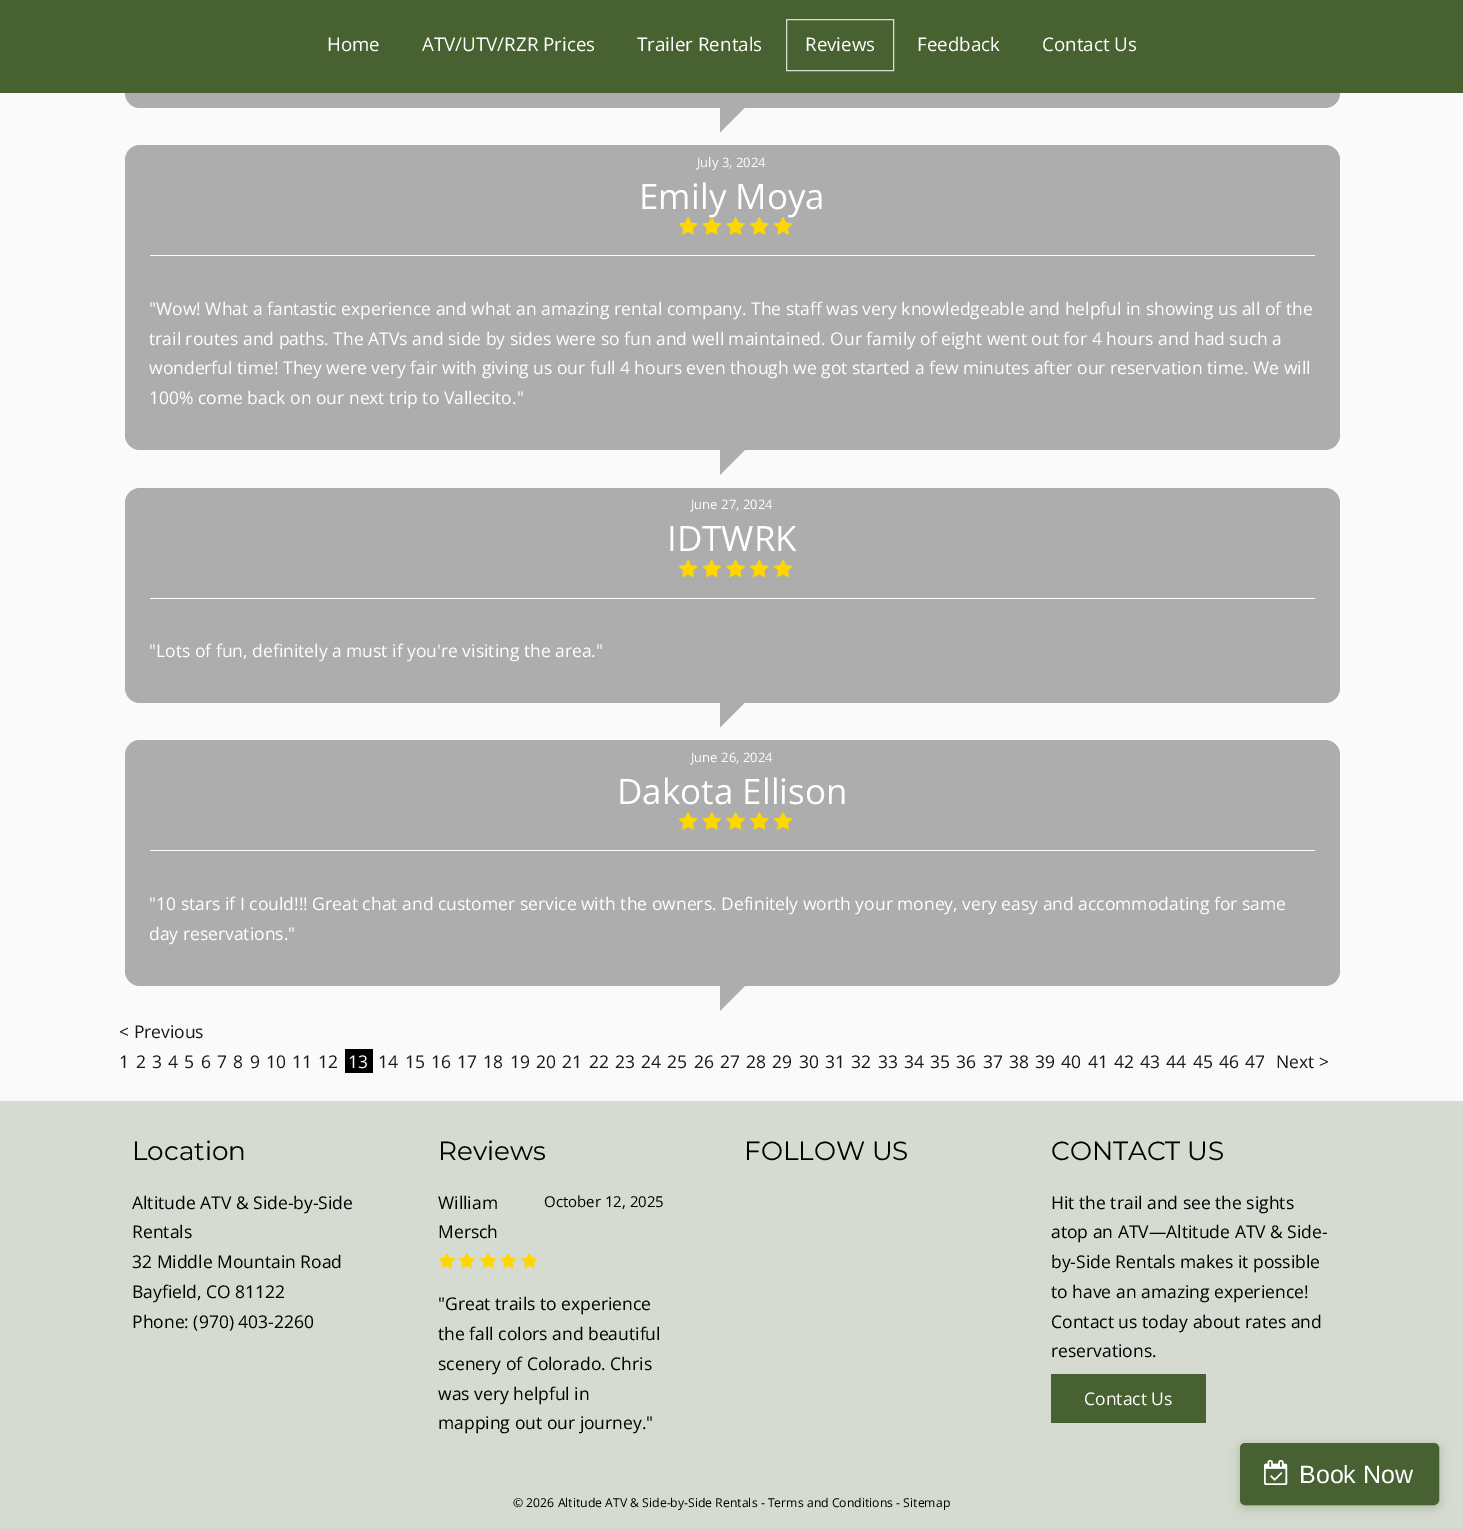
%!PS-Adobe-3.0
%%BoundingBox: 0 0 1463 1529
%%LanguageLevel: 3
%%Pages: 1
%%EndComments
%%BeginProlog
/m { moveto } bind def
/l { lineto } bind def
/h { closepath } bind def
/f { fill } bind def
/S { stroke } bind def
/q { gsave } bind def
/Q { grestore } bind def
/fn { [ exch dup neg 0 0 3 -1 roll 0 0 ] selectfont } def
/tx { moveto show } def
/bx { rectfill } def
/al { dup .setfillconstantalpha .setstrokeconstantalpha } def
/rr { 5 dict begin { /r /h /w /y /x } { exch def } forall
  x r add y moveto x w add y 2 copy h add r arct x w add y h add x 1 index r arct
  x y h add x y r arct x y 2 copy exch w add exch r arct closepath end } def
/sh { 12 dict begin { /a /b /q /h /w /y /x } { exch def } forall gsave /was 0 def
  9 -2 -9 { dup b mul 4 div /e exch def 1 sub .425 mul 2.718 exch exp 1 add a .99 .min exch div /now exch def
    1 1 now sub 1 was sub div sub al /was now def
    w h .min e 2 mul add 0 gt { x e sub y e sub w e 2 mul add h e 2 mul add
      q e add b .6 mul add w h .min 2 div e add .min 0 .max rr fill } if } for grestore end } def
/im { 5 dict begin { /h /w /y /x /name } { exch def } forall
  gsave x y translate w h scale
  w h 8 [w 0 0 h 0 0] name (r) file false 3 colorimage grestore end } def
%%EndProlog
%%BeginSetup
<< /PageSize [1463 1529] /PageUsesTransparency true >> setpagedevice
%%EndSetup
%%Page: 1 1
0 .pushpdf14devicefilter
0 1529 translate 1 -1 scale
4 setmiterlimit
0.98 setgray
0 0 1463 1529 bx
0.678 setgray
125 -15 1215 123 15 rr f
0.278 0.38 0.192 setrgbcolor
0 0 1463 93 bx
/OpenSans-Regular 18.75 fn
1 setgray
(Home) 327 51 tx
(ATV/UTV/RZR Prices) 422 51 tx
(Trailer Rentals) 637 51 tx
0.855 0.875 0.839 setrgbcolor
786.5 19.5 107 51 rectstroke
1 setgray
(Reviews) 805 51 tx
(Feedback) 917 51 tx
(Contact Us) 1042 51 tx
0.678 setgray
720 107.5 m 745 107.5 l 720 132.5 l h f
125 145 1215 305 15 rr f
/OpenSans-Regular 13 fn
1 setgray
(July 3, 2024) 697 167 tx
/OpenSans-Regular 35 fn
(Emily Moya) 639 209 tx
150 255 1165 1 bx
(image0.raw) 678 217 20 18 im
(image1.raw) 702 217 19 18 im
(image2.raw) 726 217 19 18 im
(image3.raw) 750 217 19 18 im
(image4.raw) 773 217 20 18 im
/OpenSans-Regular 17.5 fn
("Wow! What a fantastic experience and what an amazing rental company. The staff was very knowledgeable and helpful in showing us all of the) 149 315 tx
(trail routes and paths. The ATVs and side by sides were so fun and well maintained. Our family of eight went out for 4 hours and had such a) 149 345 tx
(wonderful time! They were very fair with giving us our full 4 hours even though we got started a few minutes after our reservation time. We will) 149 374 tx
(100% come back on our next trip to Vallecito.") 149 404 tx
0.678 setgray
720 450 m 745 450 l 720 475 l h f
125 488 1215 215 15 rr f
/OpenSans-Regular 13 fn
1 setgray
(June 27, 2024) 691 509 tx
/OpenSans-Regular 35 fn
(IDTWRK) 667 551 tx
150 598 1165 1 bx
(image5.raw) 678 559 20 19 im
(image6.raw) 702 559 19 19 im
(image7.raw) 726 559 19 19 im
(image8.raw) 750 559 19 19 im
(image5.raw) 773 559 20 19 im
/OpenSans-Regular 17.5 fn
("Lots of fun, definitely a must if you're visiting the area.") 149 657 tx
0.678 setgray
720 702.5 m 745 702.5 l 720 727.5 l h f
125 740 1215 246 15 rr f
/OpenSans-Regular 13 fn
1 setgray
(June 26, 2024) 691 762 tx
/OpenSans-Regular 35 fn
(Dakota Ellison) 617 804 tx
150 850 1165 1 bx
(image0.raw) 678 812 20 18 im
(image9.raw) 702 812 19 18 im
(image2.raw) 726 812 19 18 im
(image3.raw) 750 812 19 18 im
(image0.raw) 773 812 20 18 im
/OpenSans-Regular 17.5 fn
("10 stars if I could!!! Great chat and customer service with the owners. Definitely worth your money, very easy and accommodating for same) 149 910 tx
(day reservations.") 149 940 tx
0.678 setgray
720 986 m 745 986 l 720 1011 l h f
0.094 setgray
(< Previous) 119 1038 tx
(1) 119 1068 tx
(2) 136 1068 tx
(3) 152 1068 tx
(4) 168 1068 tx
(5) 184 1068 tx
(6) 201 1068 tx
(7) 217 1068 tx
(8) 233 1068 tx
(9) 250 1068 tx
(10) 266 1068 tx
(11) 292 1068 tx
(12) 318 1068 tx
0 setgray
345 1049 28 24 bx
1 setgray
(13) 348 1068 tx
0.094 setgray
(14) 378 1068 tx
(15) 405 1068 tx
(16) 431 1068 tx
(17) 457 1068 tx
(18) 483 1068 tx
(19) 510 1068 tx
(20) 536 1068 tx
(21) 562 1068 tx
(22) 589 1068 tx
(23) 615 1068 tx
(24) 641 1068 tx
(25) 667 1068 tx
(26) 694 1068 tx
(27) 720 1068 tx
(28) 746 1068 tx
(29) 772 1068 tx
(30) 799 1068 tx
(31) 825 1068 tx
(32) 851 1068 tx
(33) 878 1068 tx
(34) 904 1068 tx
(35) 930 1068 tx
(36) 956 1068 tx
(37) 983 1068 tx
(38) 1009 1068 tx
(39) 1035 1068 tx
(40) 1061 1068 tx
(41) 1088 1068 tx
(42) 1114 1068 tx
(43) 1140 1068 tx
(44) 1166 1068 tx
(45) 1193 1068 tx
(46) 1219 1068 tx
(47) 1245 1068 tx
(Next >) 1276 1068 tx
0.839 0.859 0.82 setrgbcolor
0 1101 1463 428 bx
/Montserrat-Regular 26.25 fn
0 setgray
(Location) 132 1160 tx
/OpenSans-Regular 17.5 fn
(Altitude ATV & Side-by-Side) 132 1209 tx
(Rentals) 132 1238 tx
(32 Middle Mountain Road) 132 1268 tx
(Bayfield, CO 81122) 132 1298 tx
(Phone: \(970\) 403-2260) 132 1328 tx
/Montserrat-Regular 26.25 fn
(Reviews) 438 1160 tx
/OpenSans-Regular 17.5 fn
(William) 438 1209 tx
/OpenSans-Regular 15 fn
(October 12, 2025) 544 1207 tx
/OpenSans-Regular 17.5 fn
(Mersch) 438 1238 tx
(image10.raw) 438 1252 17 17 im
(image10.raw) 458 1252 17 17 im
(image11.raw) 480 1252 17 17 im
(image11.raw) 500 1252 17 17 im
(image12.raw) 521 1252 17 17 im
("Great trails to experience) 438 1310 tx
(the fall colors and beautiful) 438 1340 tx
(scenery of Colorado. Chris) 438 1370 tx
(was very helpful in) 438 1400 tx
(mapping out our journey.") 438 1429 tx
/Montserrat-Regular 26.25 fn
(FOLLOW US) 744 1160 tx
(CONTACT US) 1051 1160 tx
/OpenSans-Regular 17.5 fn
(Hit the trail and see the sights) 1051 1209 tx
(atop an ATV—Altitude ATV & Side-) 1051 1238 tx
(by-Side Rentals makes it possible) 1051 1268 tx
(to have an amazing experience!) 1051 1298 tx
(Contact us today about rates and) 1051 1328 tx
(reservations.) 1051 1357 tx
0.278 0.38 0.192 setrgbcolor
1051 1374 155 49 bx
1 setgray
(Contact Us) 1084 1405 tx
0.278 0.38 0.196 setrgbcolor
1240 1445 199 63 5 6 0.3 sh
1240.5 1443.5 198 61 4.5 rr q f Q
S
(image13.raw) 1264 1460 24 25 im
/LiberationSans-Regular 25 fn
1 setgray
(Book Now) 1299 1483 tx
/OpenSans-Regular 12.25 fn
0 setgray
(© 2026 Altitude ATV & Side-by-Side Rentals - Terms and Conditions - Sitemap) 513 1507 tx
.poppdf14devicefilter showpage
%%EOF
